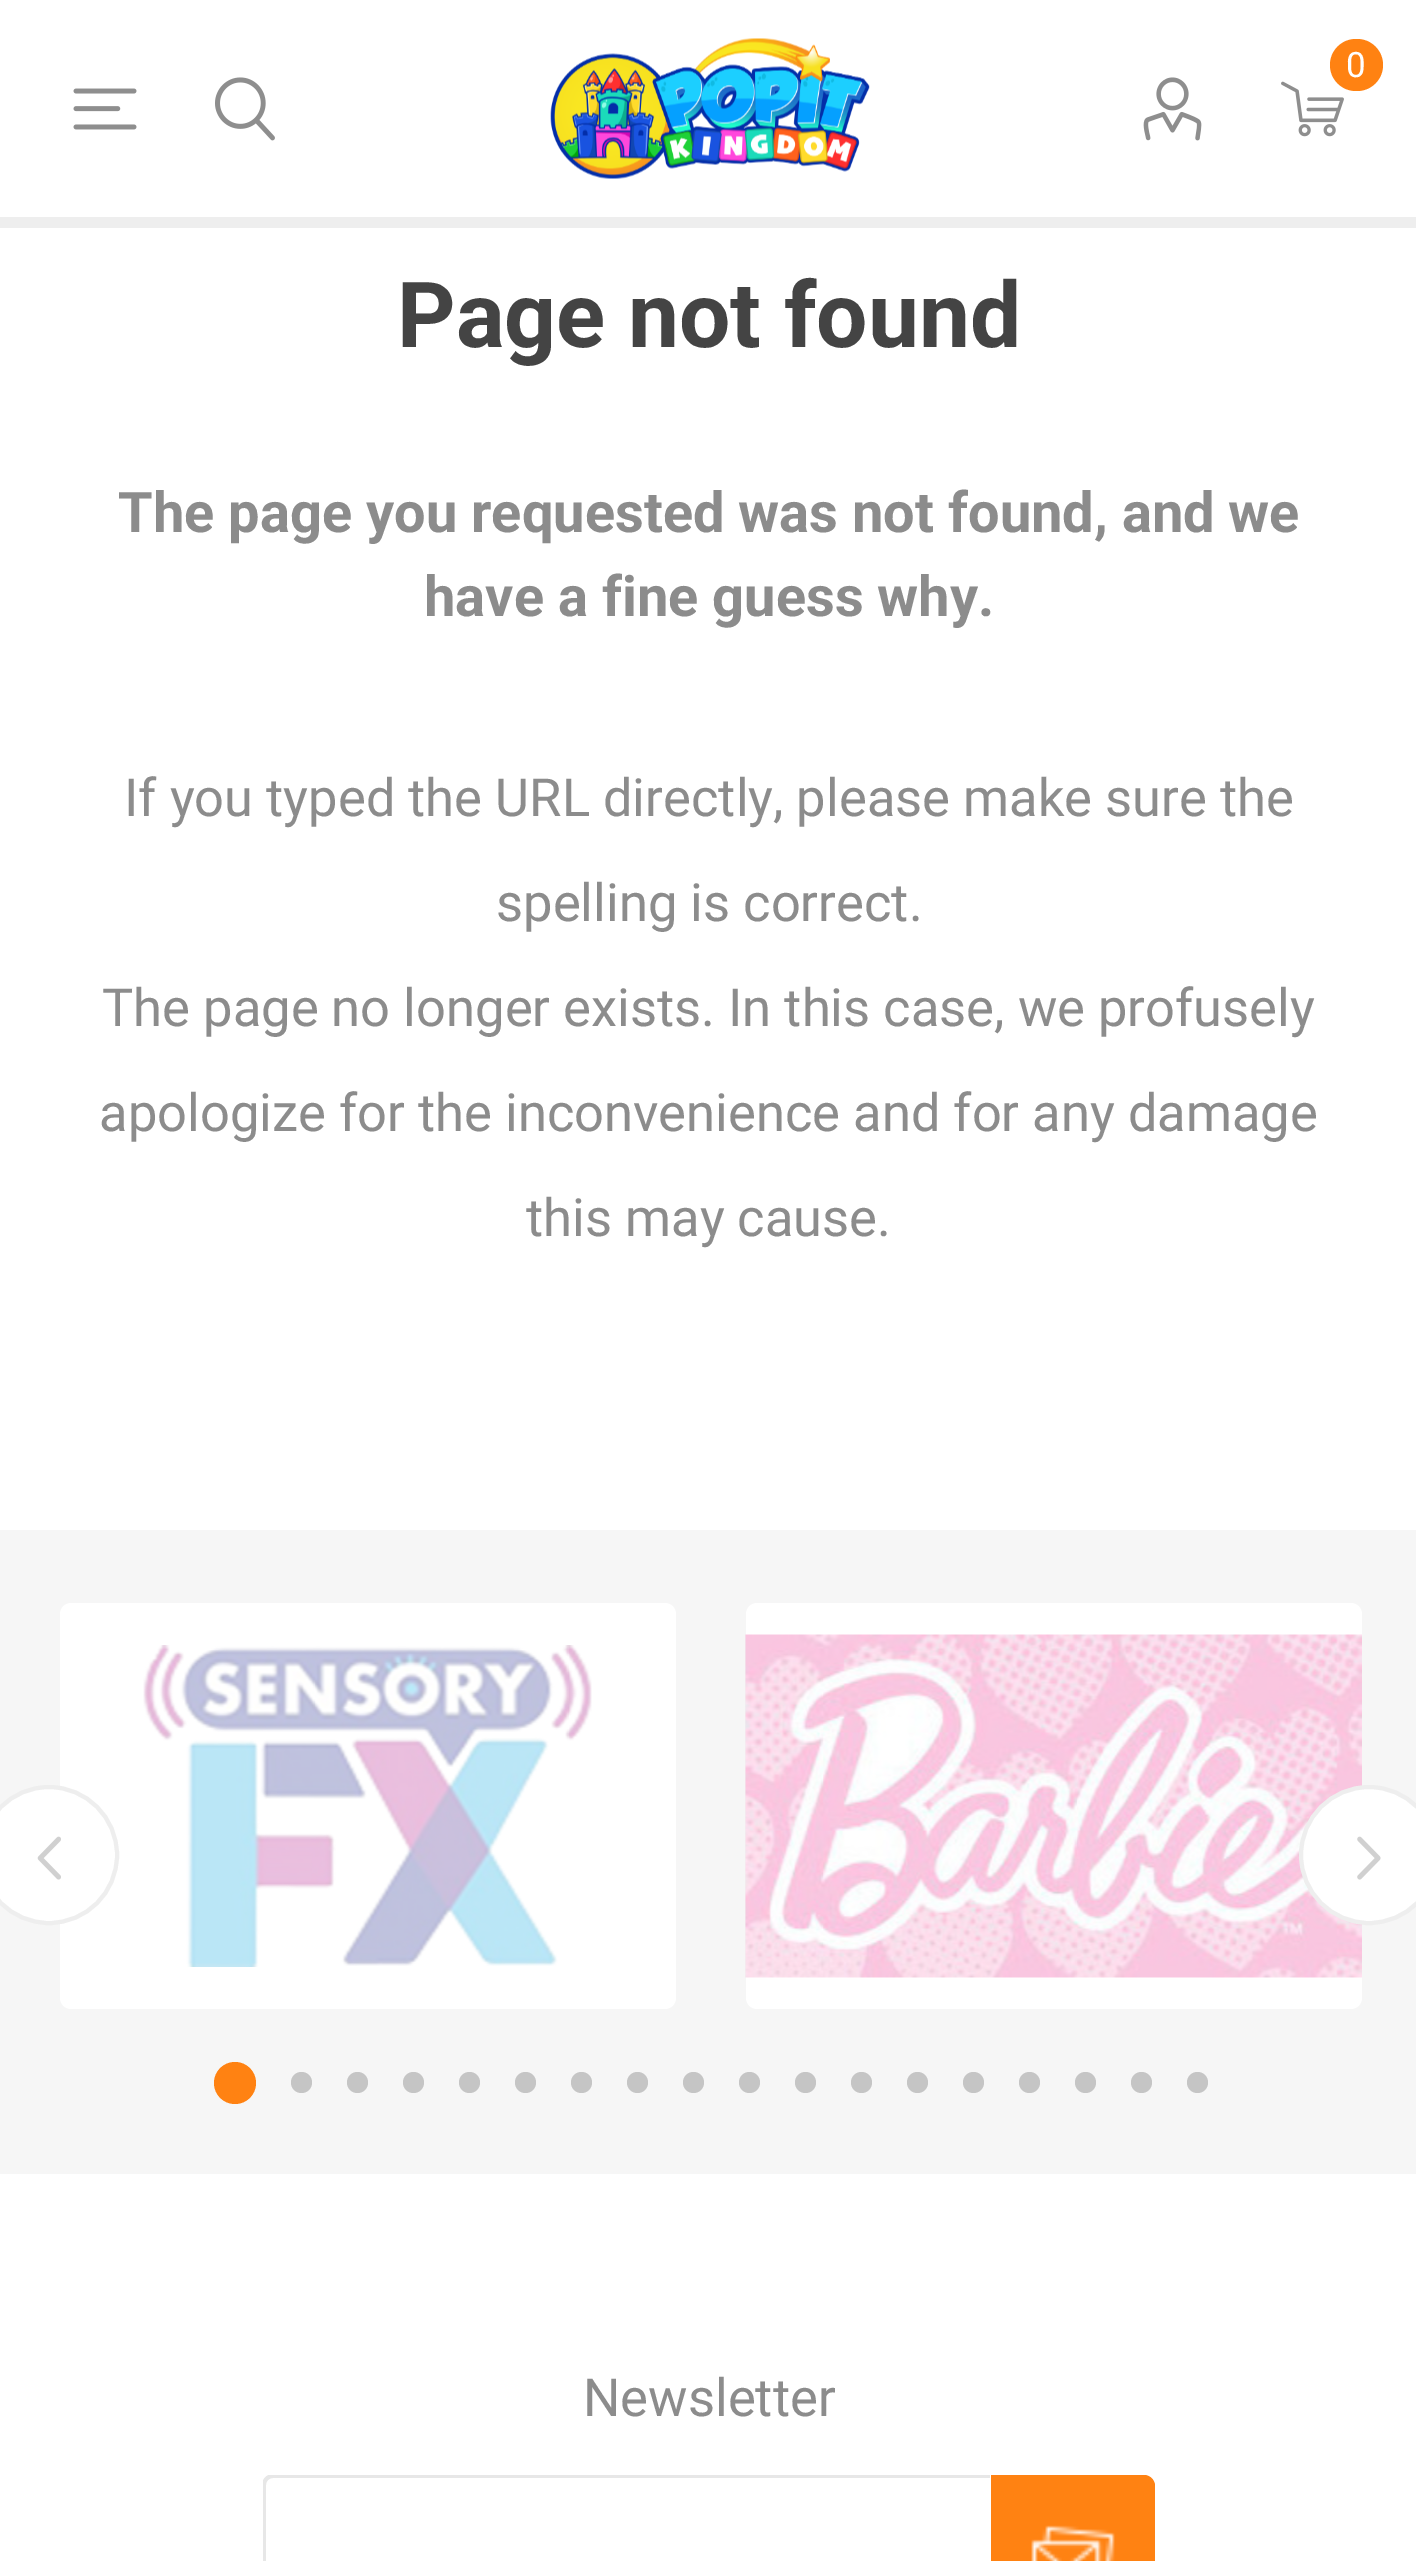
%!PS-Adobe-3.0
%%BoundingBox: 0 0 1416 2561
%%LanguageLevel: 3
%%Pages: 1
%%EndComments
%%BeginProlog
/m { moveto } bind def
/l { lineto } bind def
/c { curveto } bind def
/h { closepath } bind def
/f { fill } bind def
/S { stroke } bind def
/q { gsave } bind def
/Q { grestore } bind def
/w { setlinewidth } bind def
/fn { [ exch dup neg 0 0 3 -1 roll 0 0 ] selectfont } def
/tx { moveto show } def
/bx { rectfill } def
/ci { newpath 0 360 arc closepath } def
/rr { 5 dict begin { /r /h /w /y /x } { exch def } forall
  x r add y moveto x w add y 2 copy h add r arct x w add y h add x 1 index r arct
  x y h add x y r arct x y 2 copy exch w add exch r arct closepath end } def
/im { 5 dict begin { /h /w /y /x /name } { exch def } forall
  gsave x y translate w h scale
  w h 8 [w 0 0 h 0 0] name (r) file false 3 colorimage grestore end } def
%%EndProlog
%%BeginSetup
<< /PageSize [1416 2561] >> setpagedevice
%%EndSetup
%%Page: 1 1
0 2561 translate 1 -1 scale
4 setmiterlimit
1 setgray
0 0 1416 2561 bx
0.933 setgray
0 217 1416 11 bx
(image0.raw) 550 38 320 141 im
(image1.raw) 1281 81 63 56 im
1 0.51 0.071 setrgbcolor
1330 39 53 52 26 rr f
/Roboto-Regular 35 fn
1 setgray
(0) 1346 77 tx
(image2.raw) 73 88 64 42 im
(image3.raw) 215 77 60 64 im
(image4.raw) 1143 77 59 64 im
/Roboto-Bold 91 fn
0.267 setgray
(Page not found) 397 347 tx
/Roboto-Bold 56 fn
0.549 setgray
(The page you requested was not found, and we) 118 532 tx
(have a fine guess why.) 424 616 tx
/Roboto-Regular 52.5 fn
(If you typed the URL directly, please make sure the) 124 816 tx
(spelling is correct.) 496 921 tx
(The page no longer exists. In this case, we profusely) 102 1026 tx
(apologize for the inconvenience and for any damage) 99 1131 tx
(this may cause.) 526 1236 tx
0.965 setgray
0 1530 1416 644 bx
1 setgray
60 1603 616 406 11 rr f
49 1855 68 ci q f Q
0.933 setgray
4 w
S
(image5.raw) 37 1836 24 44 im
(image6.raw) 143 1645 449 322 im
1 setgray
746 1603 616 406 11 rr f
(image7.raw) 745 1634 617 344 im
1369 1855 68 ci q f Q
0.933 setgray
S
(image8.raw) 1357 1836 24 44 im
1 0.51 0.071 setrgbcolor
235 2083 21 ci f
0.773 setgray
301.5 2082.5 10.5 ci f
357.5 2082.5 10.5 ci f
413.5 2082.5 10.5 ci f
469.5 2082.5 10.5 ci f
525.5 2082.5 10.5 ci f
581.5 2082.5 10.5 ci f
637.5 2082.5 10.5 ci f
693.5 2082.5 10.5 ci f
749.5 2082.5 10.5 ci f
805.5 2082.5 10.5 ci f
861.5 2082.5 10.5 ci f
917.5 2082.5 10.5 ci f
973.5 2082.5 10.5 ci f
1029.5 2082.5 10.5 ci f
1085.5 2082.5 10.5 ci f
1141.5 2082.5 10.5 ci f
1197.5 2082.5 10.5 ci f
0.549 setgray
(Newsletter) 583 2416 tx
q
263 2475 892 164 rectclip
0.906 setgray
273 2474 m 990 2474 l 990 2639 l 273 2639 l 267 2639 262 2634 262 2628 c 262 2485 l 262 2479 267 2474 273 2474 c h 273 2478 m 990 2478 l 990 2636 l 273 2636 l 269 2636 266 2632 266 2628 c 266 2485 l 266 2481 269 2478 273 2478 c h eofill
Q
1 0.51 0.071 setrgbcolor
991 2475 m 1144 2475 l 1150 2475 1155 2480 1155 2486 c 1155 2561 l 1155 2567 1150 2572 1144 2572 c 991 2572 l h f
(image9.raw) 1031 2525 84 36 im
showpage
%%EOF
